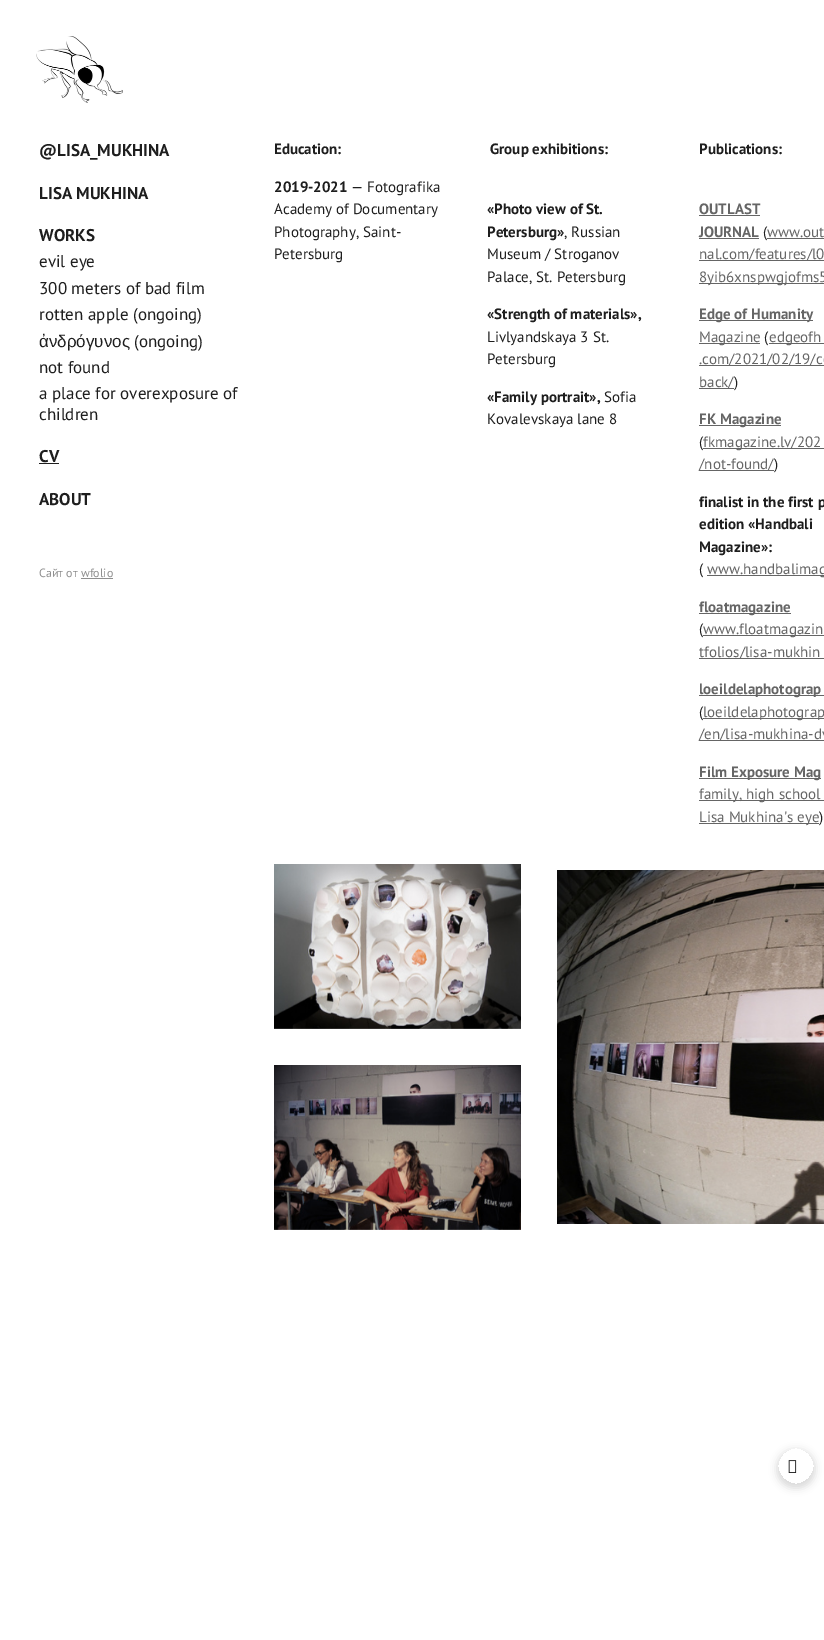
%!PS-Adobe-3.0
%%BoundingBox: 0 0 824 1640
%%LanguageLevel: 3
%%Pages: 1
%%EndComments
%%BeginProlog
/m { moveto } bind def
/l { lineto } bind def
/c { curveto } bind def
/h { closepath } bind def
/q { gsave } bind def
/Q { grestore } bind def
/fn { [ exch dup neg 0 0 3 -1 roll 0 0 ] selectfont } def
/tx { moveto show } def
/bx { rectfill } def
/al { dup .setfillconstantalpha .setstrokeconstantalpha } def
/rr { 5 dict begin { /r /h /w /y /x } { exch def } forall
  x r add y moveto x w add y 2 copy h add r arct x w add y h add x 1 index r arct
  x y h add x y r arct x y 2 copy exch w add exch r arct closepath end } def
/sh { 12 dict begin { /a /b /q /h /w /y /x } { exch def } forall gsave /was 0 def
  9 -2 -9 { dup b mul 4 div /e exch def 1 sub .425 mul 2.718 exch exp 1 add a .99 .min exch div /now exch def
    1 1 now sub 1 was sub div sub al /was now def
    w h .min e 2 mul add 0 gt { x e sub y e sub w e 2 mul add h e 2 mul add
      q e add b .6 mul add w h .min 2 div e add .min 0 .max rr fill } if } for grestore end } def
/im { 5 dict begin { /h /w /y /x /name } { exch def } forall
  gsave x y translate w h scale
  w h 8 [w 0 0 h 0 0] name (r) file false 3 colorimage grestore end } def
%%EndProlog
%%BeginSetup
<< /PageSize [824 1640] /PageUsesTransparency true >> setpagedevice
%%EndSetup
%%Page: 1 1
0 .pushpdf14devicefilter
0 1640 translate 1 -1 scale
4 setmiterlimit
1 setgray
0 0 824 1640 bx
(image0.raw) 36 36 87 67 im
/PTSans-Bold 17 fn
0.118 setgray
(@LISA_MUKHINA) 39 156 tx
(LISA MUKHINA) 39 199 tx
(WORKS) 39 241 tx
/PTSans-Regular 17 fn
(evil eye) 39 267 tx
(300 meters of bad film) 39 294 tx
(rotten apple \(ongoing\)) 39 320 tx
/LiberationSans-Regular 17 fn
(ἀνδρόγυνος) 39 347 tx
/PTSans-Regular 17 fn
(\(ongoing\)) 134 347 tx
(not found) 39 373 tx
(a place for overexposure of) 39 399 tx
(children) 39 420 tx
/PTSans-Bold 17 fn
(CV) 39 462 tx
39 463 20 1 bx
(ABOUT) 39 505 tx
/PTSans-Regular 12 fn
0.561 setgray
(Сайт от wfolio) 39 577 tx
81 578 32 1 bx
/PTSans-Bold 15 fn
0.118 setgray
(Education:) 274 154 tx
(2019-2021) 274 192 tx
/PTSans-Regular 15 fn
(— Fotografika) 351 192 tx
(Academy of Documentary) 274 214 tx
(Photography, Saint-) 274 237 tx
(Petersburg) 274 259 tx
/PTSans-Bold 15 fn
(Group exhibitions:) 490 154 tx
(«Photo view of St.) 487 214 tx
(Petersburg») 487 237 tx
/PTSans-Regular 15 fn
(, Russian) 564 237 tx
(Museum / Stroganov) 487 259 tx
(Palace, St. Petersburg) 487 282 tx
/PTSans-Bold 15 fn
(«Strength of materials»,) 487 319 tx
/PTSans-Regular 15 fn
(Livlyandskaya 3 St.) 487 342 tx
(Petersburg) 487 364 tx
/PTSans-Bold 15 fn
(«Family portrait»,) 487 402 tx
/PTSans-Regular 15 fn
(Sofia) 604 402 tx
(Kovalevskaya lane 8) 487 424 tx
/PTSans-Bold 15 fn
(Publications:) 699 154 tx
0.396 setgray
(OUTLAST) 699 214 tx
699 215 61 1 bx
(JOURNAL) 699 237 tx
699 238 60 1 bx
/PTSans-Regular 15 fn
0.118 setgray
(\() 763 237 tx
0.396 setgray
(www.out) 767 237 tx
767 238 57 1 bx
699 260 125 1 bx
(nal.com/features/l0) 699 259 tx
699 283 125 1 bx
(8yib6xnspwgjofms5) 699 282 tx
699 320 114 1 bx
/PTSans-Bold 15 fn
(Edge of Humanity) 699 319 tx
699 343 61 1 bx
/PTSans-Regular 15 fn
(Magazine) 699 342 tx
0.118 setgray
(\() 764 342 tx
0.396 setgray
769 343 55 1 bx
(edgeofh) 769 342 tx
699 365 125 1 bx
(.com/2021/02/19/co) 699 364 tx
699 388 35 1 bx
(back/) 699 387 tx
0.118 setgray
(\)) 734 387 tx
0.396 setgray
699 425 82 1 bx
/PTSans-Bold 15 fn
(FK Magazine) 699 424 tx
/PTSans-Regular 15 fn
0.118 setgray
(\() 699 447 tx
0.396 setgray
703 448 121 1 bx
(fkmagazine.lv/202) 703 447 tx
699 470 75 1 bx
(/not-found/) 699 469 tx
0.118 setgray
(\)) 774 469 tx
/PTSans-Bold 15 fn
(finalist in the first p) 699 507 tx
(edition «Handbali) 699 529 tx
(Magazine»:) 699 552 tx
/PTSans-Regular 15 fn
(\() 699 574 tx
0.396 setgray
707 575 117 1 bx
(www.handbalimag) 707 574 tx
699 613 92 1 bx
/PTSans-Bold 15 fn
(floatmagazine) 699 612 tx
/PTSans-Regular 15 fn
0.118 setgray
(\() 699 634 tx
0.396 setgray
703 635 121 1 bx
(www.floatmagazin) 703 634 tx
699 658 125 1 bx
(tfolios/lisa-mukhin) 699 657 tx
699 695 125 1 bx
/PTSans-Bold 15 fn
(loeildelaphotograp) 699 694 tx
/PTSans-Regular 15 fn
0.118 setgray
(\() 699 717 tx
0.396 setgray
703 718 121 1 bx
(loeildelaphotograp) 703 717 tx
699 740 125 1 bx
(/en/lisa-mukhina-dv) 699 739 tx
699 778 122 1 bx
/PTSans-Bold 15 fn
(Film Exposure Mag) 699 777 tx
699 800 125 1 bx
/PTSans-Regular 15 fn
(family, high school) 699 799 tx
699 823 120 1 bx
(Lisa Mukhina's eye) 699 822 tx
0.118 setgray
(\)) 819 822 tx
(image1.raw) 274 864 247 165 im
(image2.raw) 274 1065 247 165 im
(image3.raw) 557 870 267 354 im
q
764 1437 m 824 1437 l 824 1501 l 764 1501 l h 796 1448 m 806 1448 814 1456 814 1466 c 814 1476 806 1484 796 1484 c 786 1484 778 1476 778 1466 c 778 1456 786 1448 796 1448 c h eoclip newpath
0 setgray
777 1450 38 38 19 4 0.15 sh
Q
(image4.raw) 788 1460 9 13 im
.poppdf14devicefilter showpage
%%EOF
